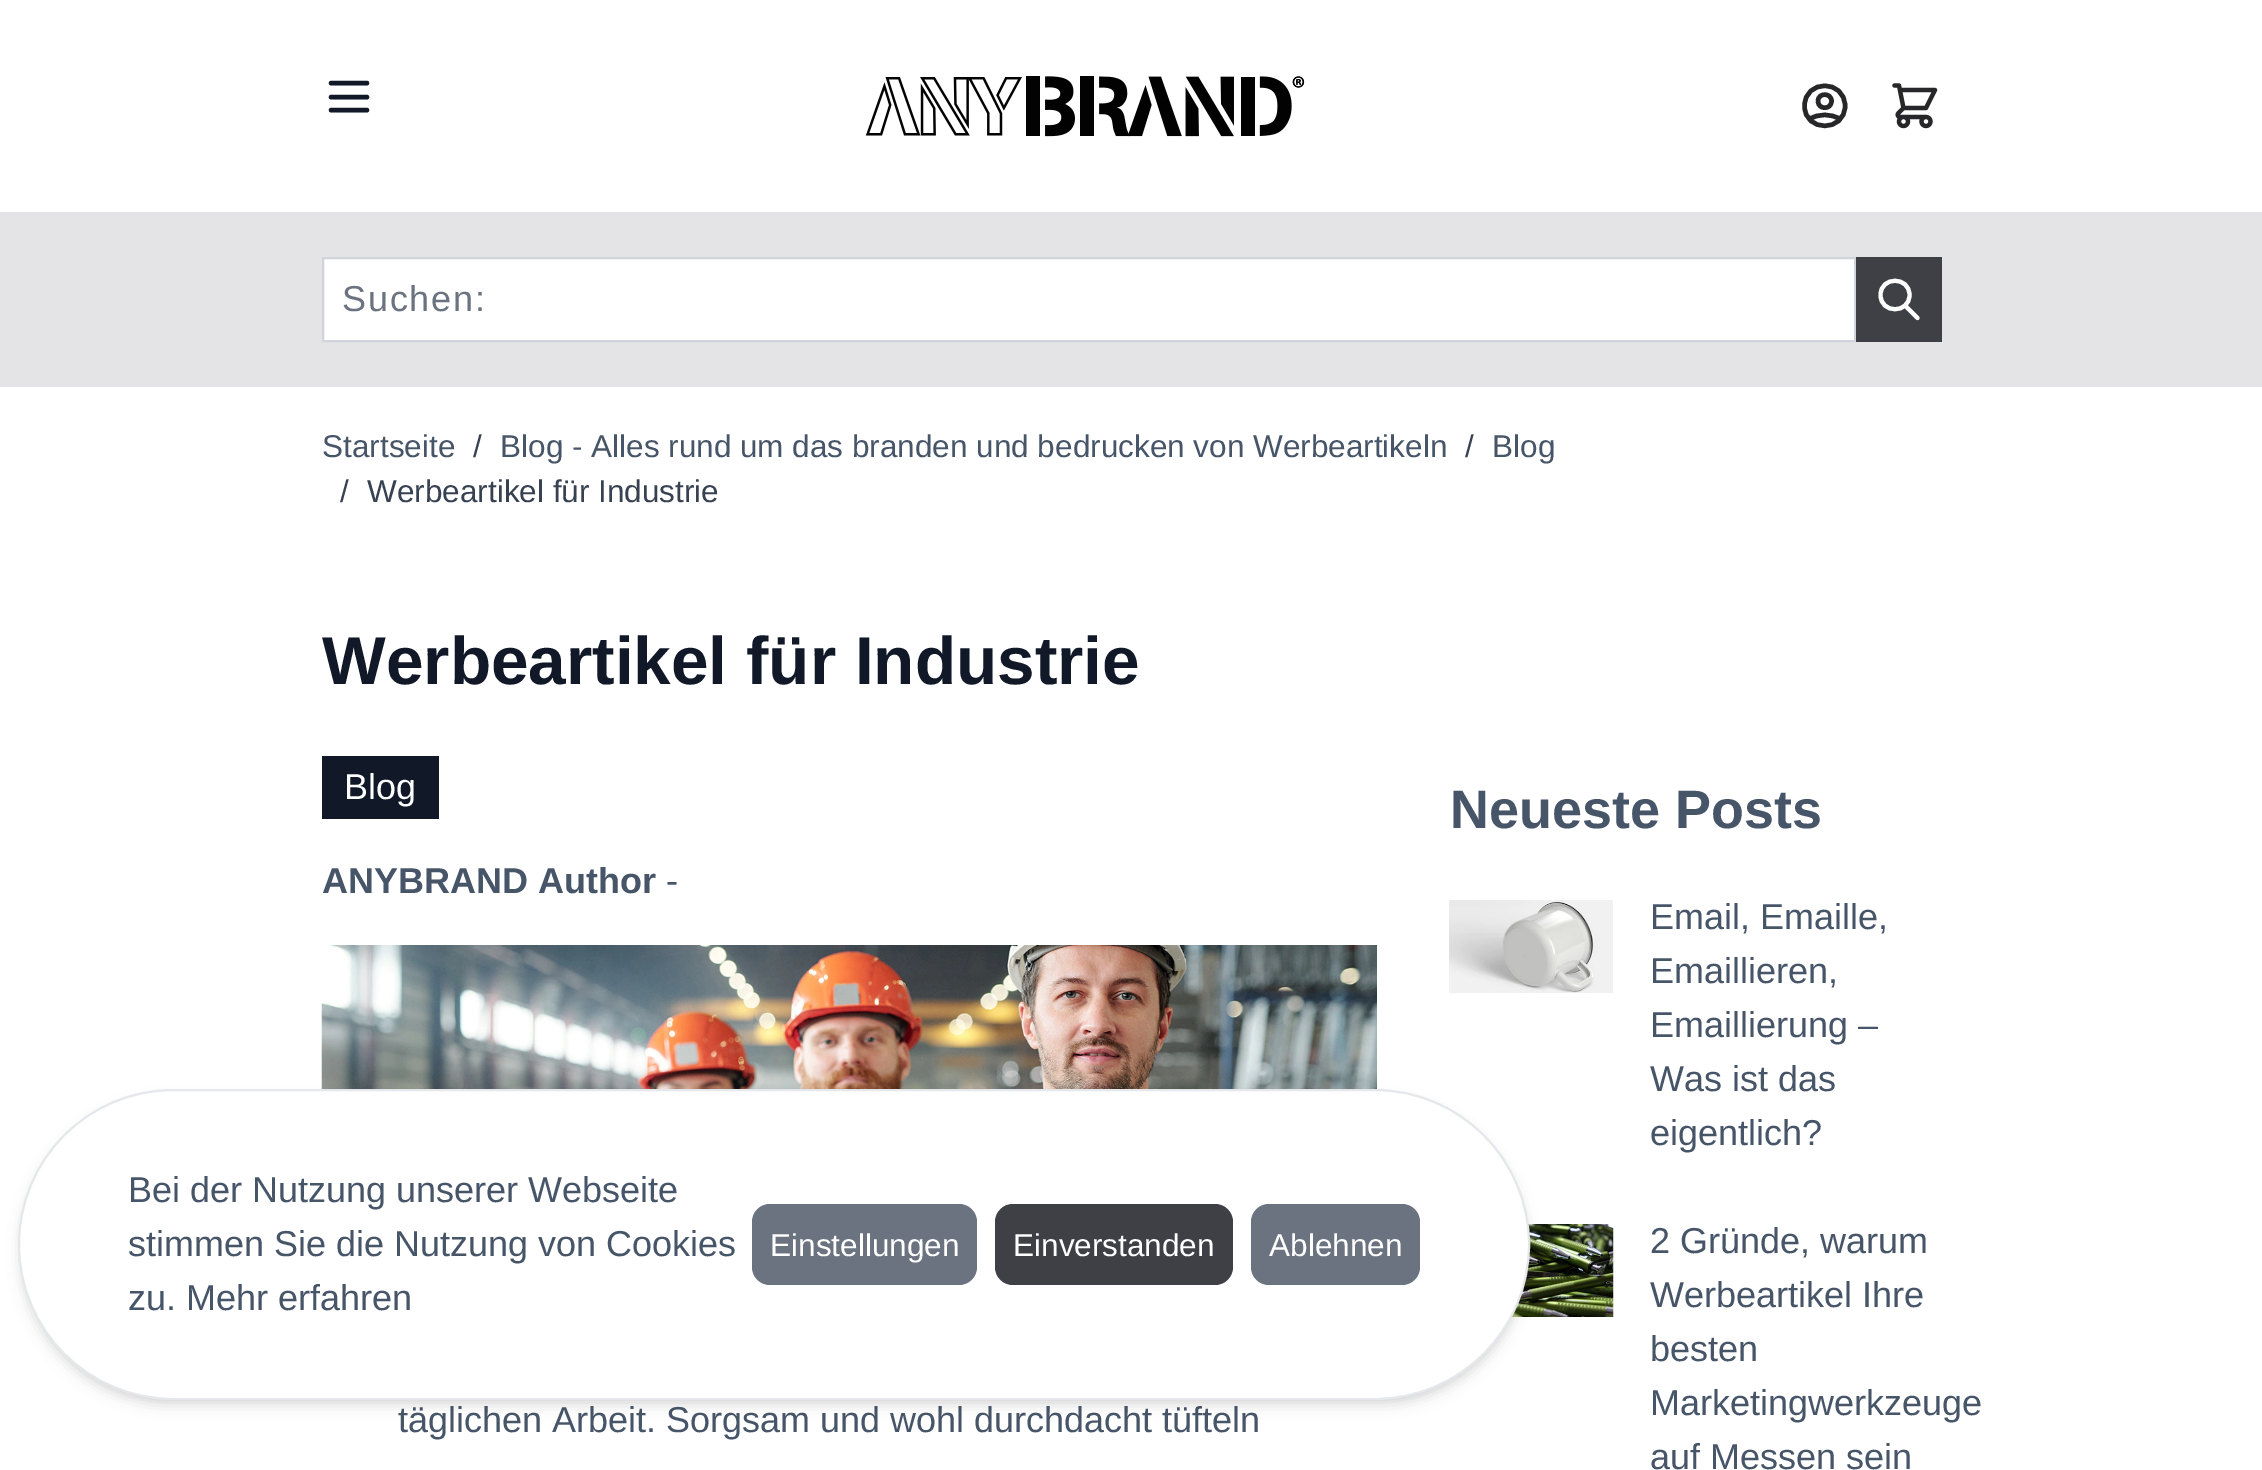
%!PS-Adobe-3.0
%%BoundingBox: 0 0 2262 1470
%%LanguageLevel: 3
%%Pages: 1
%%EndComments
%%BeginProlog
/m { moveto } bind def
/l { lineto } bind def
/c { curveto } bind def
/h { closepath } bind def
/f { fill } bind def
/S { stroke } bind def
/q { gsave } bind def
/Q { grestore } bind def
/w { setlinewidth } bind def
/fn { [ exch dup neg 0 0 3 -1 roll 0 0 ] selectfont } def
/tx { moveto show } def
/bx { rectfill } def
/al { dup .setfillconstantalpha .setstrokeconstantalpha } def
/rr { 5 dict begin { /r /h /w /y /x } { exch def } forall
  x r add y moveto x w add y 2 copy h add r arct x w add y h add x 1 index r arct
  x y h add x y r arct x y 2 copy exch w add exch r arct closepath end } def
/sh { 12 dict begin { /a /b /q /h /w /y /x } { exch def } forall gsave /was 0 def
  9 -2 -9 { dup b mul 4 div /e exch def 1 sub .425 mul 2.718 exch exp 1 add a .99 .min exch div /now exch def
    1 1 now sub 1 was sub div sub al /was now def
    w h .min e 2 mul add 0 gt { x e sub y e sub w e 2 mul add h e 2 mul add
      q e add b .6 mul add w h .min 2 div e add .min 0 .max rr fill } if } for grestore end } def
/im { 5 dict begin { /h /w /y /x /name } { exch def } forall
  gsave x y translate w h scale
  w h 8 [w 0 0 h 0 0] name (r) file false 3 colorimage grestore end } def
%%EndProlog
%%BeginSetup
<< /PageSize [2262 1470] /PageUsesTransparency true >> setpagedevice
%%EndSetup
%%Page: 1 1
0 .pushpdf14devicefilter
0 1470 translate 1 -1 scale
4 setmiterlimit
1 setgray
0 0 2262 1470 bx
0.067 0.094 0.153 setrgbcolor
4.5 w
1 setlinecap
1 setlinejoin
331 83 m 367 83 l 331 97 m 367 97 l 331 110 m 367 110 l S
(image0.raw) 865 76 440 61 im
0.153 0.153 0.165 setrgbcolor
1809.5 119 m 1819 113.5 1830.5 113.5 1840 119 c 1831.5 101 m 1831.5 110 1818 110 1818 101 c 1818 92.5 1831.5 92.5 1831.5 101 c h 1845 106 m 1845 132.5 1804.5 132.5 1804.5 106 c 1804.5 79 1845 79 1845 106 c h S
(image1.raw) 1892 83 46 46 im
0.894 0.894 0.906 setrgbcolor
0 212 2262 175 bx
1 setgray
323 258 m 1855 258 l 1855 341 l 323 341 l h q f Q
0.82 0.835 0.859 setrgbcolor
2 w
0 setlinecap
0 setlinejoin
S
/LiberationSans-Regular 36 fn
0.42 0.447 0.502 setrgbcolor
342 311 m 1.75 0 (Suchen:) ashow
0.247 0.247 0.275 setrgbcolor
1856 257 86 85 bx
1 setgray
4.1 w
1 setlinecap
1 setlinejoin
1917.5 318 m 1905 305.5 l 1909.5 295 m 1909.5 314 1880.5 314 1880.5 295 c 1880.5 276 1909.5 276 1909.5 295 c h S
/LiberationSans-Regular 31.5 fn
0.278 0.333 0.412 setrgbcolor
(Startseite) 322 457 tx
0.216 0.255 0.318 setrgbcolor
(/) 473 457 tx
0.278 0.333 0.412 setrgbcolor
(Blog - Alles rund um das branden und bedrucken von Werbeartikeln) 500 457 tx
0.216 0.255 0.318 setrgbcolor
(/) 1465 457 tx
0.278 0.333 0.412 setrgbcolor
(Blog) 1492 457 tx
0.216 0.255 0.318 setrgbcolor
(/) 340 502 tx
(Werbeartikel für Industrie) 367 502 tx
/LiberationSans-Bold 67.5 fn
0.067 0.094 0.153 setrgbcolor
(Werbeartikel für Industrie) 322 684 tx
322 756 117 63 bx
/LiberationSans-Regular 36 fn
1 setgray
(Blog) 344 799 tx
/LiberationSans-Bold 36 fn
0.278 0.333 0.412 setrgbcolor
(ANYBRAND Author) 322 893 tx
/LiberationSans-Regular 36 fn
(-) 666 893 tx
(image2.raw) 321 945 1056 145 im
(täglichen Arbeit. Sorgsam und wohl durchdacht tüfteln) 398 1432 tx
/LiberationSans-Bold 54 fn
(Neueste Posts) 1450 828 tx
(image3.raw) 1449 900 164 93 im
/LiberationSans-Regular 36 fn
(Email, Emaille,) 1650 929 tx
(Emaillieren,) 1650 983 tx
(Emaillierung –) 1650 1037 tx
(Was ist das) 1650 1091 tx
(eigentlich?) 1650 1145 tx
(image4.raw) 1512 1224 102 93 im
(2 Gründe, warum) 1650 1253 tx
(Werbeartikel Ihre) 1650 1307 tx
(besten) 1650 1361 tx
(Marketingwerkzeuge) 1650 1415 tx
(auf Messen sein) 1650 1469 tx
0 setgray
23 1098 1503 302 151 4.5 0.1 sh
20 1100 1508 306 153 7 0.1 sh
1 setgray
19 1090 1510 309 154.5 rr q f Q
0.898 0.906 0.922 setrgbcolor
2 w
0 setlinecap
0 setlinejoin
S
0.278 0.333 0.412 setrgbcolor
(Bei der Nutzung unserer Webseite) 128 1202 tx
(stimmen Sie die Nutzung von Cookies) 128 1256 tx
(zu. Mehr erfahren) 128 1310 tx
0.42 0.447 0.502 setrgbcolor
752 1204 225 81 18 rr f
/LiberationSans-Regular 31.5 fn
1 setgray
(Einstellungen) 770 1256 tx
0.247 0.247 0.275 setrgbcolor
995 1204 238 81 18 rr f
1 setgray
(Einverstanden) 1013 1256 tx
0.42 0.447 0.502 setrgbcolor
1251 1204 169 81 18 rr f
1 setgray
(Ablehnen) 1269 1256 tx
.poppdf14devicefilter showpage
%%EOF
